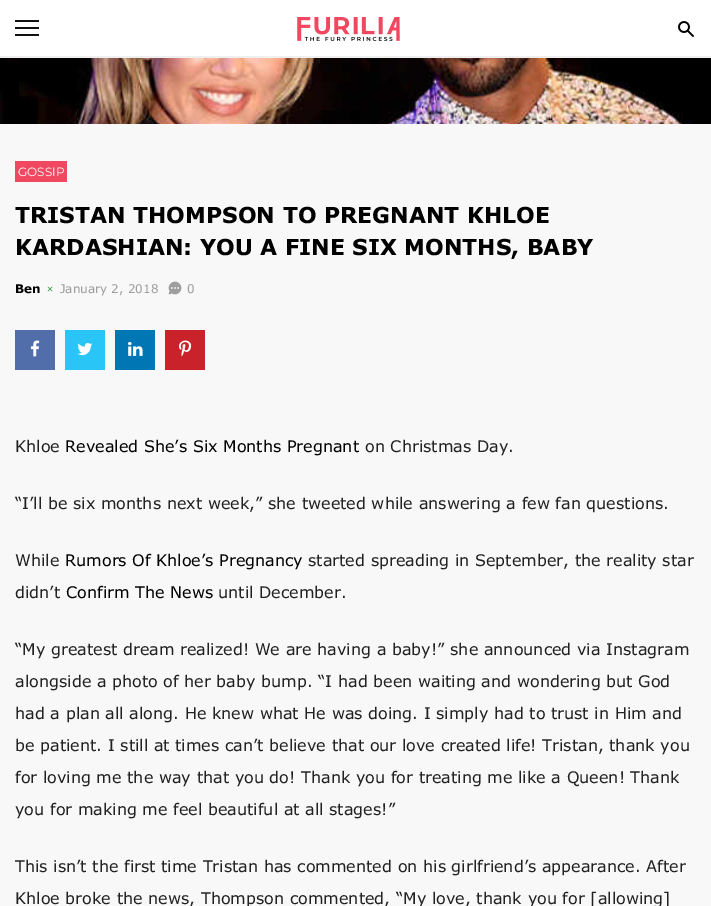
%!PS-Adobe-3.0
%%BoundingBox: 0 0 711 906
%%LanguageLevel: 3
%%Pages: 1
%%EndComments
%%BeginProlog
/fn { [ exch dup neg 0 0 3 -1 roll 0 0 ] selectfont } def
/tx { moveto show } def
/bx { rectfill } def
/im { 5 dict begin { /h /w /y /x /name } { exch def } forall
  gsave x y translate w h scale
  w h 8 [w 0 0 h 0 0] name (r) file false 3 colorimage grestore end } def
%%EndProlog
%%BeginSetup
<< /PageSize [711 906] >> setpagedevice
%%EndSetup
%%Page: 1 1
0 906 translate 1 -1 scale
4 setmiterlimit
0.973 setgray
0 0 711 906 bx
0.937 setgray
0 56 711 2 bx
1 setgray
0 0 711 56 bx
(image0.raw) 297 17 103 24 im
0.067 setgray
15 20 24 2 bx
15 27 24 2 bx
15 34 24 2 bx
(image1.raw) 678 21 16 16 im
(image2.raw) 0 58 711 66 im
0.937 0.282 0.376 setrgbcolor
15 161 52 21 bx
/Montserrat-Regular 12 fn
1 setgray
(GOSSIP) 18 176 tx
/Verdana-Bold 22 fn
0 setgray
(TRISTAN THOMPSON TO PREGNANT KHLOE) 15 223 tx
(KARDASHIAN: YOU A FINE SIX MONTHS, BABY) 15 255 tx
/Verdana-Bold 12 fn
(Ben) 15 293 tx
(image3.raw) 47 286 6 6 im
/Verdana-Regular 12 fn
0.62 setgray
(January 2, 2018) 60 293 tx
(image4.raw) 168 281 14 14 im
(0) 187 293 tx
0.318 0.431 0.671 setrgbcolor
15 330 40 40 bx
(image5.raw) 30 340 10 17 im
0.161 0.773 0.965 setrgbcolor
65 330 40 40 bx
(image6.raw) 77 343 16 13 im
0 0.467 0.71 setrgbcolor
115 330 40 40 bx
(image7.raw) 128 342 15 14 im
0.792 0.133 0.165 setrgbcolor
165 330 40 40 bx
(image8.raw) 179 340 13 17 im
/Verdana-Regular 16 fn
0.133 setgray
(Khloe) 15 452 tx
0 setgray
(Revealed She’s Six Months Pregnant) 65 452 tx
0.133 setgray
(on Christmas Day.) 365 452 tx
(“I’ll be six months next week,” she tweeted while answering a few fan questions.) 15 509 tx
(While) 15 566 tx
0 setgray
(Rumors Of Khloe’s Pregnancy) 65 566 tx
0.133 setgray
(started spreading in September, the reality star) 308 566 tx
(didn’t) 15 598 tx
0 setgray
(Confirm The News) 66 598 tx
0.133 setgray
(until December.) 218 598 tx
(“My greatest dream realized! We are having a baby!” she announced via Instagram) 15 655 tx
(alongside a photo of her baby bump. “I had been waiting and wondering but God) 15 687 tx
(had a plan all along. He knew what He was doing. I simply had to trust in Him and) 15 719 tx
(be patient. I still at times can’t believe that our love created life! Tristan, thank you) 15 751 tx
(for loving me the way that you do! Thank you for treating me like a Queen! Thank) 15 783 tx
(you for making me feel beautiful at all stages!”) 15 815 tx
(This isn’t the first time Tristan has commented on his girlfriend’s appearance. After) 15 872 tx
(Khloe broke the news, Thompson commented, “My love, thank you for [allowing]) 15 904 tx
showpage
%%EOF
